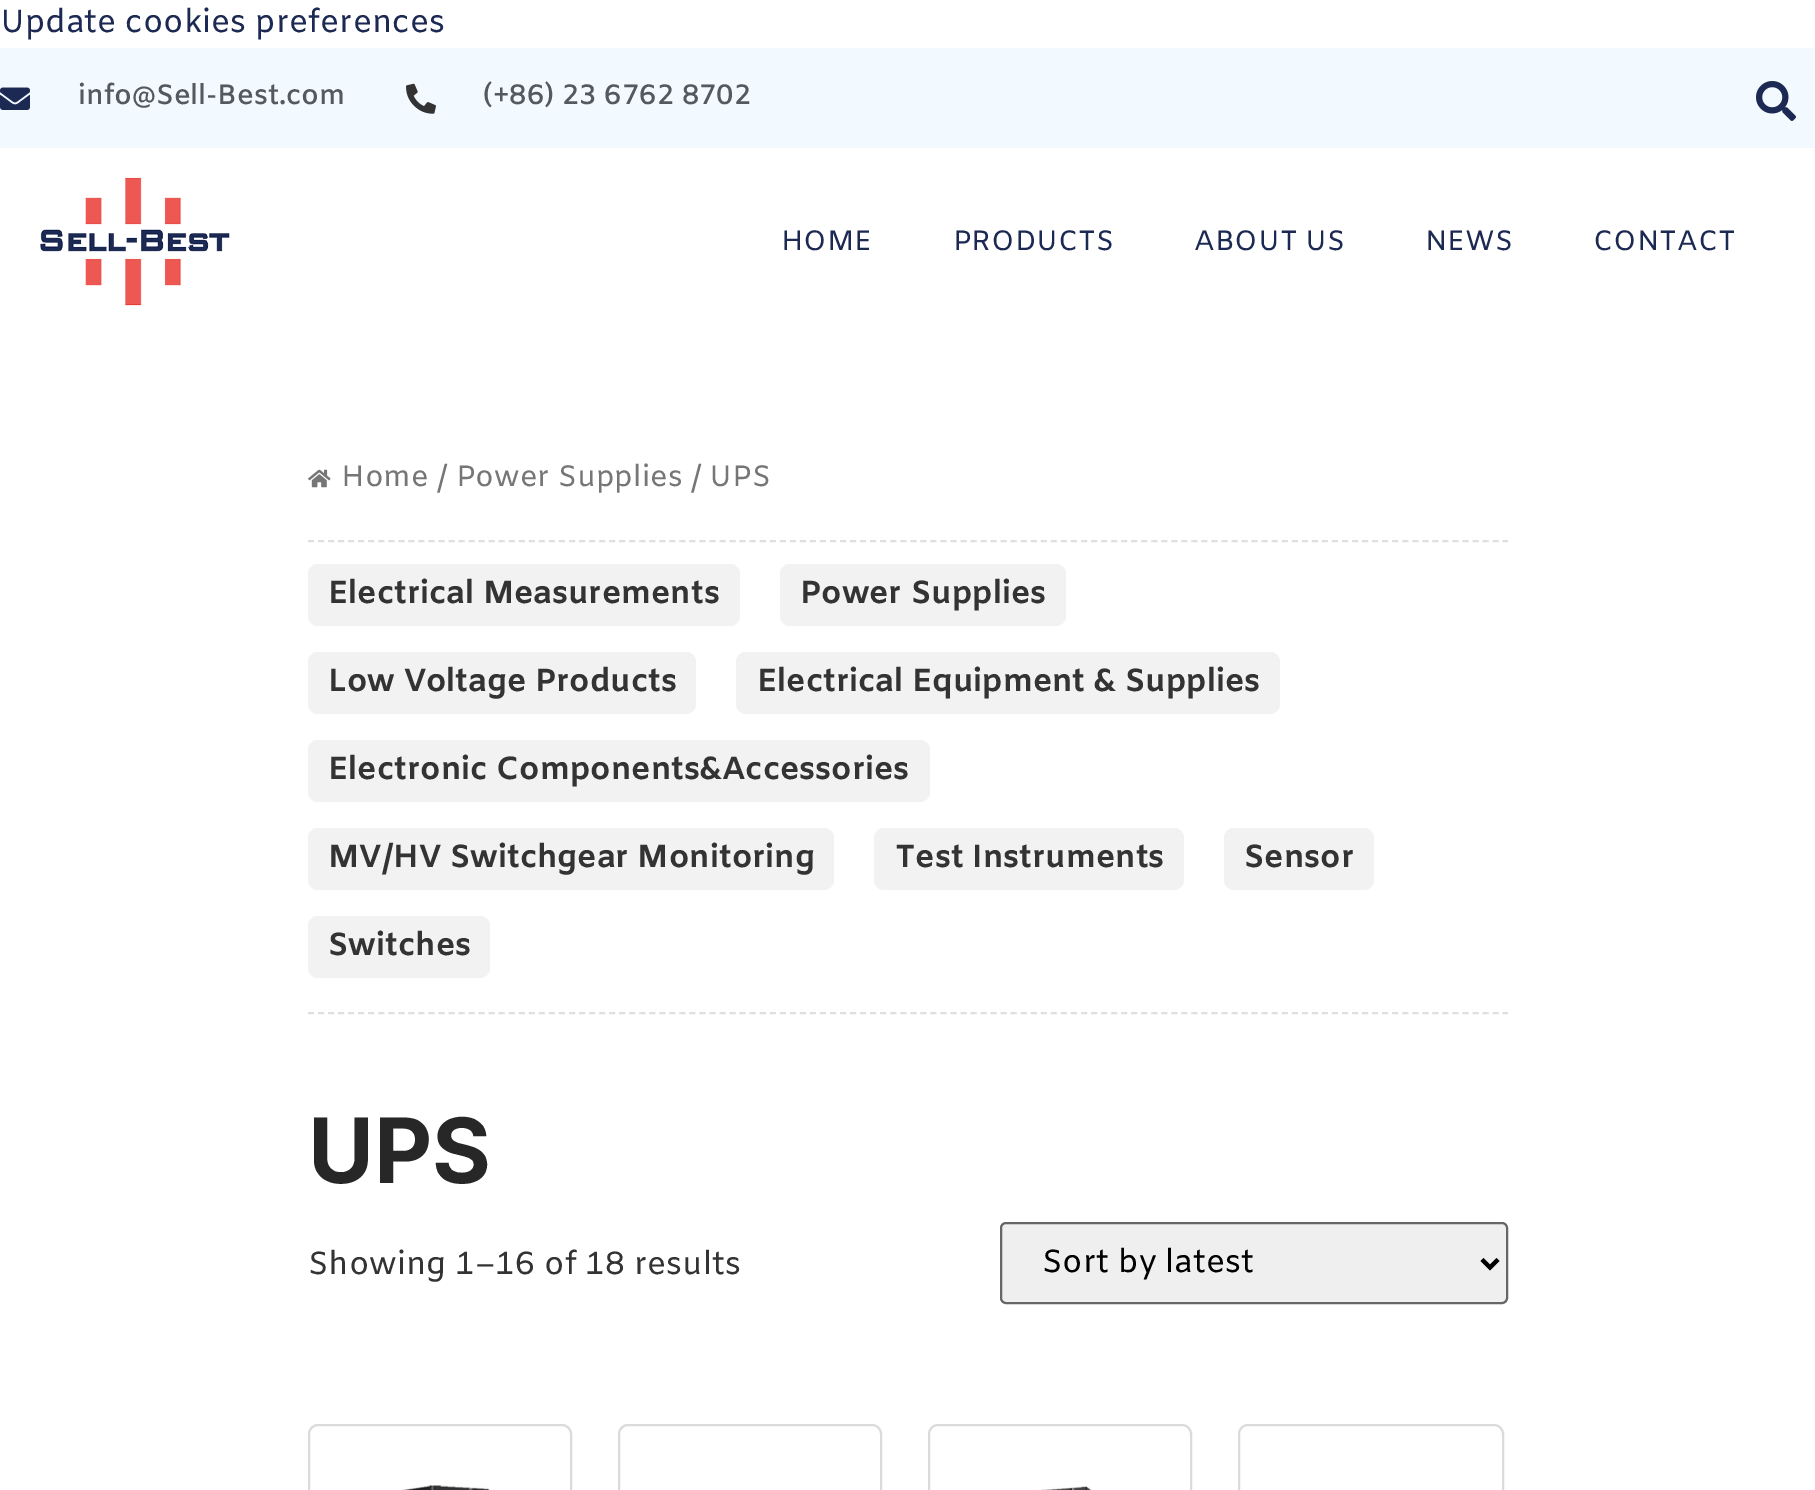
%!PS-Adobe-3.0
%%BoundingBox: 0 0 1815 1490
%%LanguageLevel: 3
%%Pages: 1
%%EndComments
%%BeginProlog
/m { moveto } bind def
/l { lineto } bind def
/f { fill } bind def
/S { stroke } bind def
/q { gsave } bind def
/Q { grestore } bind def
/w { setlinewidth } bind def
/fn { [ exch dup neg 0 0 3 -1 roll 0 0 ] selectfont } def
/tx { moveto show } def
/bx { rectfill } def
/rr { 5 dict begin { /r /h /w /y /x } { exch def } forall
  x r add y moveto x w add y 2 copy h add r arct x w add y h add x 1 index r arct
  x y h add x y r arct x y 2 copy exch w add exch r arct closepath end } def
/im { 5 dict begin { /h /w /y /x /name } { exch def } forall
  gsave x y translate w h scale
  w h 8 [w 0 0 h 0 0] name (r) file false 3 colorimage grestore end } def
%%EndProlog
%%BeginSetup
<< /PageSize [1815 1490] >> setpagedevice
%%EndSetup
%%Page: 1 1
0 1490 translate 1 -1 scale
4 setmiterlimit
1 setgray
0 0 1815 1490 bx
/Amiko-Regular 32 fn
0.11 0.161 0.325 setrgbcolor
(Update cookies preferences) 0 32 tx
0.953 0.98 1 setrgbcolor
0 48 1815 100 bx
(image0.raw) 0 87 30 23 im
/Amiko-SemiBold 28 fn
0.329 0.349 0.373 setrgbcolor
(info@Sell-Best.com) 78 104 tx
(image1.raw) 406 83 30 31 im
(\(+86\) 23 6762 8702) 483 104 tx
(image2.raw) 1756 81 40 40 im
(image3.raw) 40 177 190 129 im
/Amiko-Regular 28 fn
0.11 0.161 0.325 setrgbcolor
(HOME) 781 250 tx
(PRODUCTS) 953 250 tx
(ABOUT US) 1194 250 tx
(NEWS) 1425 250 tx
(CONTACT) 1593 250 tx
0.875 setgray
2 w
[6 4.04] 0 setdash
308 541 m 1508 541 l S
(image4.raw) 308 469 23 19 im
/Amiko-Regular 29.5 fn
0.463 setgray
(Home / Power Supplies / UPS) 341 486 tx
0.875 setgray
308 1013 m 1508 1013 l S
0.949 setgray
308 564 432 62 10 rr f
/Amiko-Bold 32 fn
0.2 setgray
(Electrical Measurements) 328 603 tx
0.949 setgray
780 564 286 62 10 rr f
0.2 setgray
(Power Supplies) 800 603 tx
0.949 setgray
308 652 388 62 10 rr f
0.2 setgray
(Low Voltage Products) 328 691 tx
0.949 setgray
736 652 544 62 10 rr f
0.2 setgray
(Electrical Equipment & Supplies) 757 691 tx
0.949 setgray
308 740 622 62 10 rr f
0.2 setgray
(Electronic Components&Accessories) 328 779 tx
0.949 setgray
308 828 526 62 10 rr f
0.2 setgray
(MV/HV Switchgear Monitoring) 328 867 tx
0.949 setgray
874 828 310 62 10 rr f
0.2 setgray
(Test Instruments) 895 867 tx
0.949 setgray
1224 828 150 62 10 rr f
0.2 setgray
(Sensor) 1244 867 tx
0.949 setgray
308 916 182 62 10 rr f
0.2 setgray
(Switches) 328 955 tx
/Inter-Bold 90 fn
0.153 setgray
(UPS) 308 1183 tx
/Amiko-Regular 32 fn
0.2 setgray
(Showing 1–16 of 18 results) 308 1274 tx
0.937 setgray
1001 1223 506 80 5 rr q f Q
0.4 setgray
[] 0 setdash
S
0 setgray
4 w
1482 1259.5 m 1490 1267.5 l 1498 1259.5 l S
(Sort by latest) 1042 1272 tx
0.859 setgray
2 w
309 1425 262 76 9 rr S
(image5.raw) 401 1485 89 5 im
619 1425 262 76 9 rr S
929 1425 262 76 9 rr S
(image6.raw) 1037 1486 55 4 im
1239 1425 264 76 9 rr S
showpage
%%EOF
